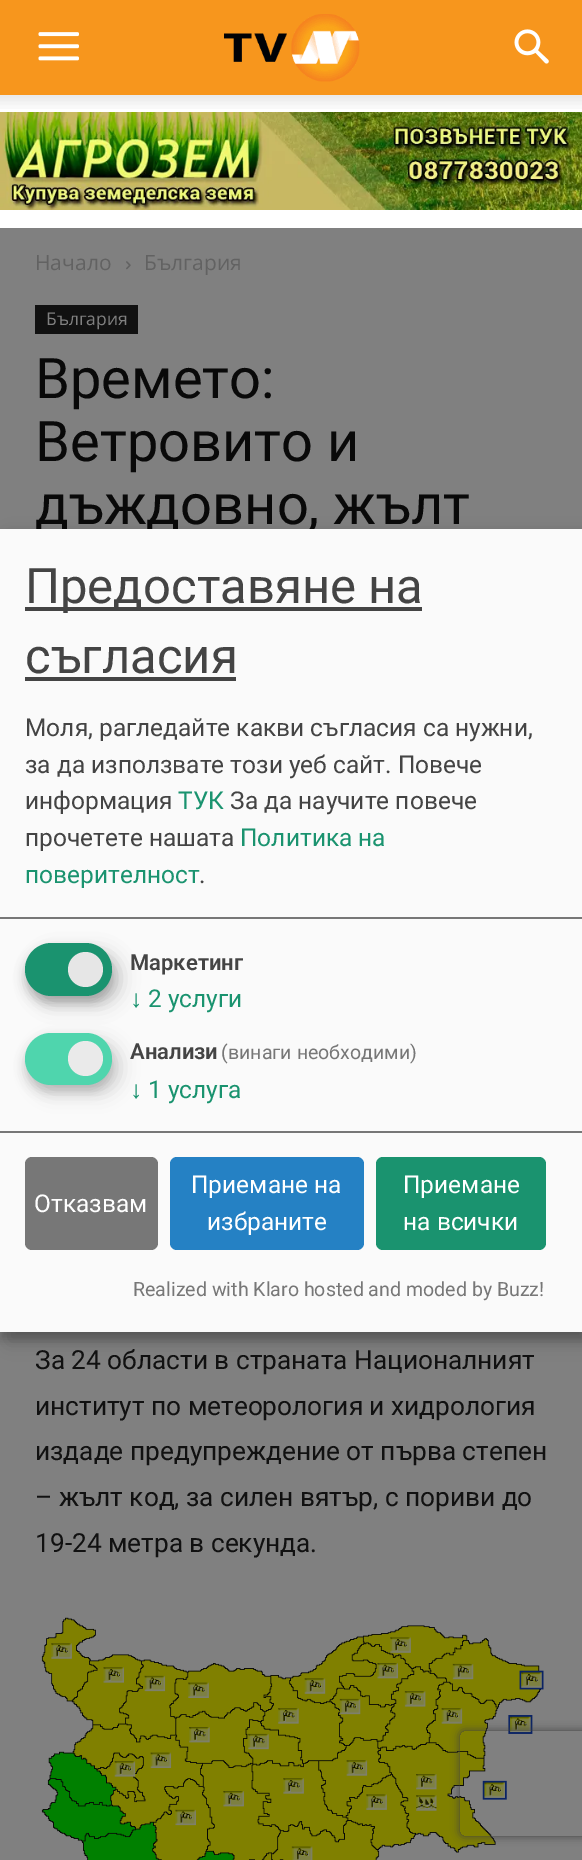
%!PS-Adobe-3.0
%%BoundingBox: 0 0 582 1860
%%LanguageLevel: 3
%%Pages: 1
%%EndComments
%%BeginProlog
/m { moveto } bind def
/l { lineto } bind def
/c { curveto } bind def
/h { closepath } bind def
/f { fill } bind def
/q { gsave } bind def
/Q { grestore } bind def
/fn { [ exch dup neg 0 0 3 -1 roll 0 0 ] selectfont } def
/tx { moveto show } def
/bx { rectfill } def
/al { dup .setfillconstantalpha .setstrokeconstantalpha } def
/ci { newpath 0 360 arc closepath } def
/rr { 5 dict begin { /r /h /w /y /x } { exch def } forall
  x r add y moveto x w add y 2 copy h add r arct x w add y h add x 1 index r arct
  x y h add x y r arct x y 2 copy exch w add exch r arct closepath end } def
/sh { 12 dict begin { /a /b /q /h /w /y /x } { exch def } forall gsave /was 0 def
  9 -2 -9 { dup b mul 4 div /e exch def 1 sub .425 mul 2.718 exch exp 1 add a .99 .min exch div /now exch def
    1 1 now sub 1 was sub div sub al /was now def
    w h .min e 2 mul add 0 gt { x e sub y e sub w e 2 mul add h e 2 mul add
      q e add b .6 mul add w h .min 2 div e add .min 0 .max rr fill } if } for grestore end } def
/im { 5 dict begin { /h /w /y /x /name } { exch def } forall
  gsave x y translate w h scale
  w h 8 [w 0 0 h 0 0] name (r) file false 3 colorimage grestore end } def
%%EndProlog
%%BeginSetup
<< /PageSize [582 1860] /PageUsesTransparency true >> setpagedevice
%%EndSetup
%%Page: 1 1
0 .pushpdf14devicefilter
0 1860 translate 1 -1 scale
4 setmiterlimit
0.502 setgray
0 0 582 1860 bx
0.969 0.588 0.114 setrgbcolor
0 0 582 95 bx
(image0.raw) 38 32 41 29 im
(image1.raw) 224 14 136 68 im
(image2.raw) 514 29 35 35 im
1 setgray
0 95 582 133 bx
(image3.raw) 0 95 582 14 im
(image4.raw) 0 112 582 98 im
/OpenSans-Regular 21 fn
0.384 setgray
(Начало) 35 270 tx
(image5.raw) 126 261 5 9 im
(България) 144 270 tx
0.067 setgray
35 305 103 29 bx
/OpenSans-Regular 17.5 fn
0.502 setgray
(България) 46 325 tx
/Roboto-Regular 56 fn
0.035 setgray
(Времето:) 35 398 tx
(Ветровито и) 35 461 tx
(дъждовно, жълт) 35 524 tx
/Roboto-Regular 26.25 fn
0.067 setgray
(За 24 области в страната Националният) 35 1369 tx
(институт по метеорология и хидрология) 35 1415 tx
(издаде предупреждение от първа степен) 35 1460 tx
(– жълт код, за силен вятър, с пориви до) 35 1506 tx
(19-24 метра в секунда.) 35 1552 tx
(image6.raw) 41 1617 503 243 im
0 setgray
9 537 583 804 0 9 0.19 sh
0 536 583 803 0 5 0.2 sh
0.98 setgray
0 529 582 803 bx
0.467 setgray
0 917 582 2 bx
0.267 setgray
25 607 397 4 bx
/Roboto-Regular 49 fn
(Предоставяне на) 25 603 tx
(съгласия) 25 673 tx
25 677 211 4 bx
/Roboto-Regular 24.5 fn
(Моля, рагледайте какви съгласия са нужни,) 25 736 tx
(за да използвате този уеб сайт. Повече) 25 773 tx
(информация) 25 809 tx
0.102 0.576 0.435 setrgbcolor
(ТУК) 178 809 tx
0.267 setgray
(За да научите повече) 230 809 tx
(прочетете нашата) 25 846 tx
0.102 0.576 0.435 setrgbcolor
(Политика на) 240 846 tx
(поверителност) 25 883 tx
0.267 setgray
(.) 199 883 tx
0 setgray
33 952 88 53 26.5 9 0.19 sh
25 950 87 53 26.5 5 0.2 sh
0.102 0.576 0.435 setrgbcolor
25 943 87 53 26.5 rr f
0.902 setgray
85.5 969.5 17.5 ci f
/Roboto-SemiBold 22 fn
0.267 setgray
(Маркетинг) 130 970 tx
/LiberationSans-Regular 24.5 fn
0.102 0.576 0.435 setrgbcolor
(↓) 130 1007 tx
/Roboto-Regular 24.5 fn
(2 услуги) 148 1007 tx
0 setgray
33 1041 88 53 26.5 9 0.15 sh
0.196 setgray
25 1040 87 52 26 5 0.2 sh
0.31 0.835 0.678 setrgbcolor
25 1033 87 52 26 rr f
0.918 setgray
85.5 1058.5 17.5 ci f
/Roboto-SemiBold 22 fn
0.267 setgray
(Анализи) 130 1059 tx
/Roboto-Regular 19.6 fn
0.467 setgray
(\(винаги необходими\)) 221 1059 tx
/LiberationSans-Regular 24.5 fn
0.102 0.576 0.435 setrgbcolor
(↓) 130 1098 tx
/Roboto-Regular 24.5 fn
(1 услуга) 148 1098 tx
0.467 setgray
0 1131 582 2 bx
25 1157 133 93 7 rr f
1 setgray
(Отказвам) 34 1212 tx
0.145 0.506 0.769 setrgbcolor
170 1157 194 93 7 rr f
1 setgray
(Приемане на) 191 1193 tx
(избраните) 207 1230 tx
0.102 0.576 0.435 setrgbcolor
376 1157 170 93 7 rr f
1 setgray
(Приемане) 403 1193 tx
(на всички) 403 1230 tx
/Roboto-Regular 19.6 fn
0.467 setgray
(Realized with Klaro hosted and moded by Buzz!) 133 1296 tx
q
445 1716 m 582 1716 l 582 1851 l 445 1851 l h 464 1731 m 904 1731 l 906 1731 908 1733 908 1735 c 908 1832 l 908 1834 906 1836 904 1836 c 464 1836 l 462 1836 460 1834 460 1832 c 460 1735 l 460 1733 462 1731 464 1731 c h eoclip newpath
0.251 setgray
460 1731 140 105 4 4.5 1 sh
Q
.poppdf14devicefilter showpage
%%EOF
